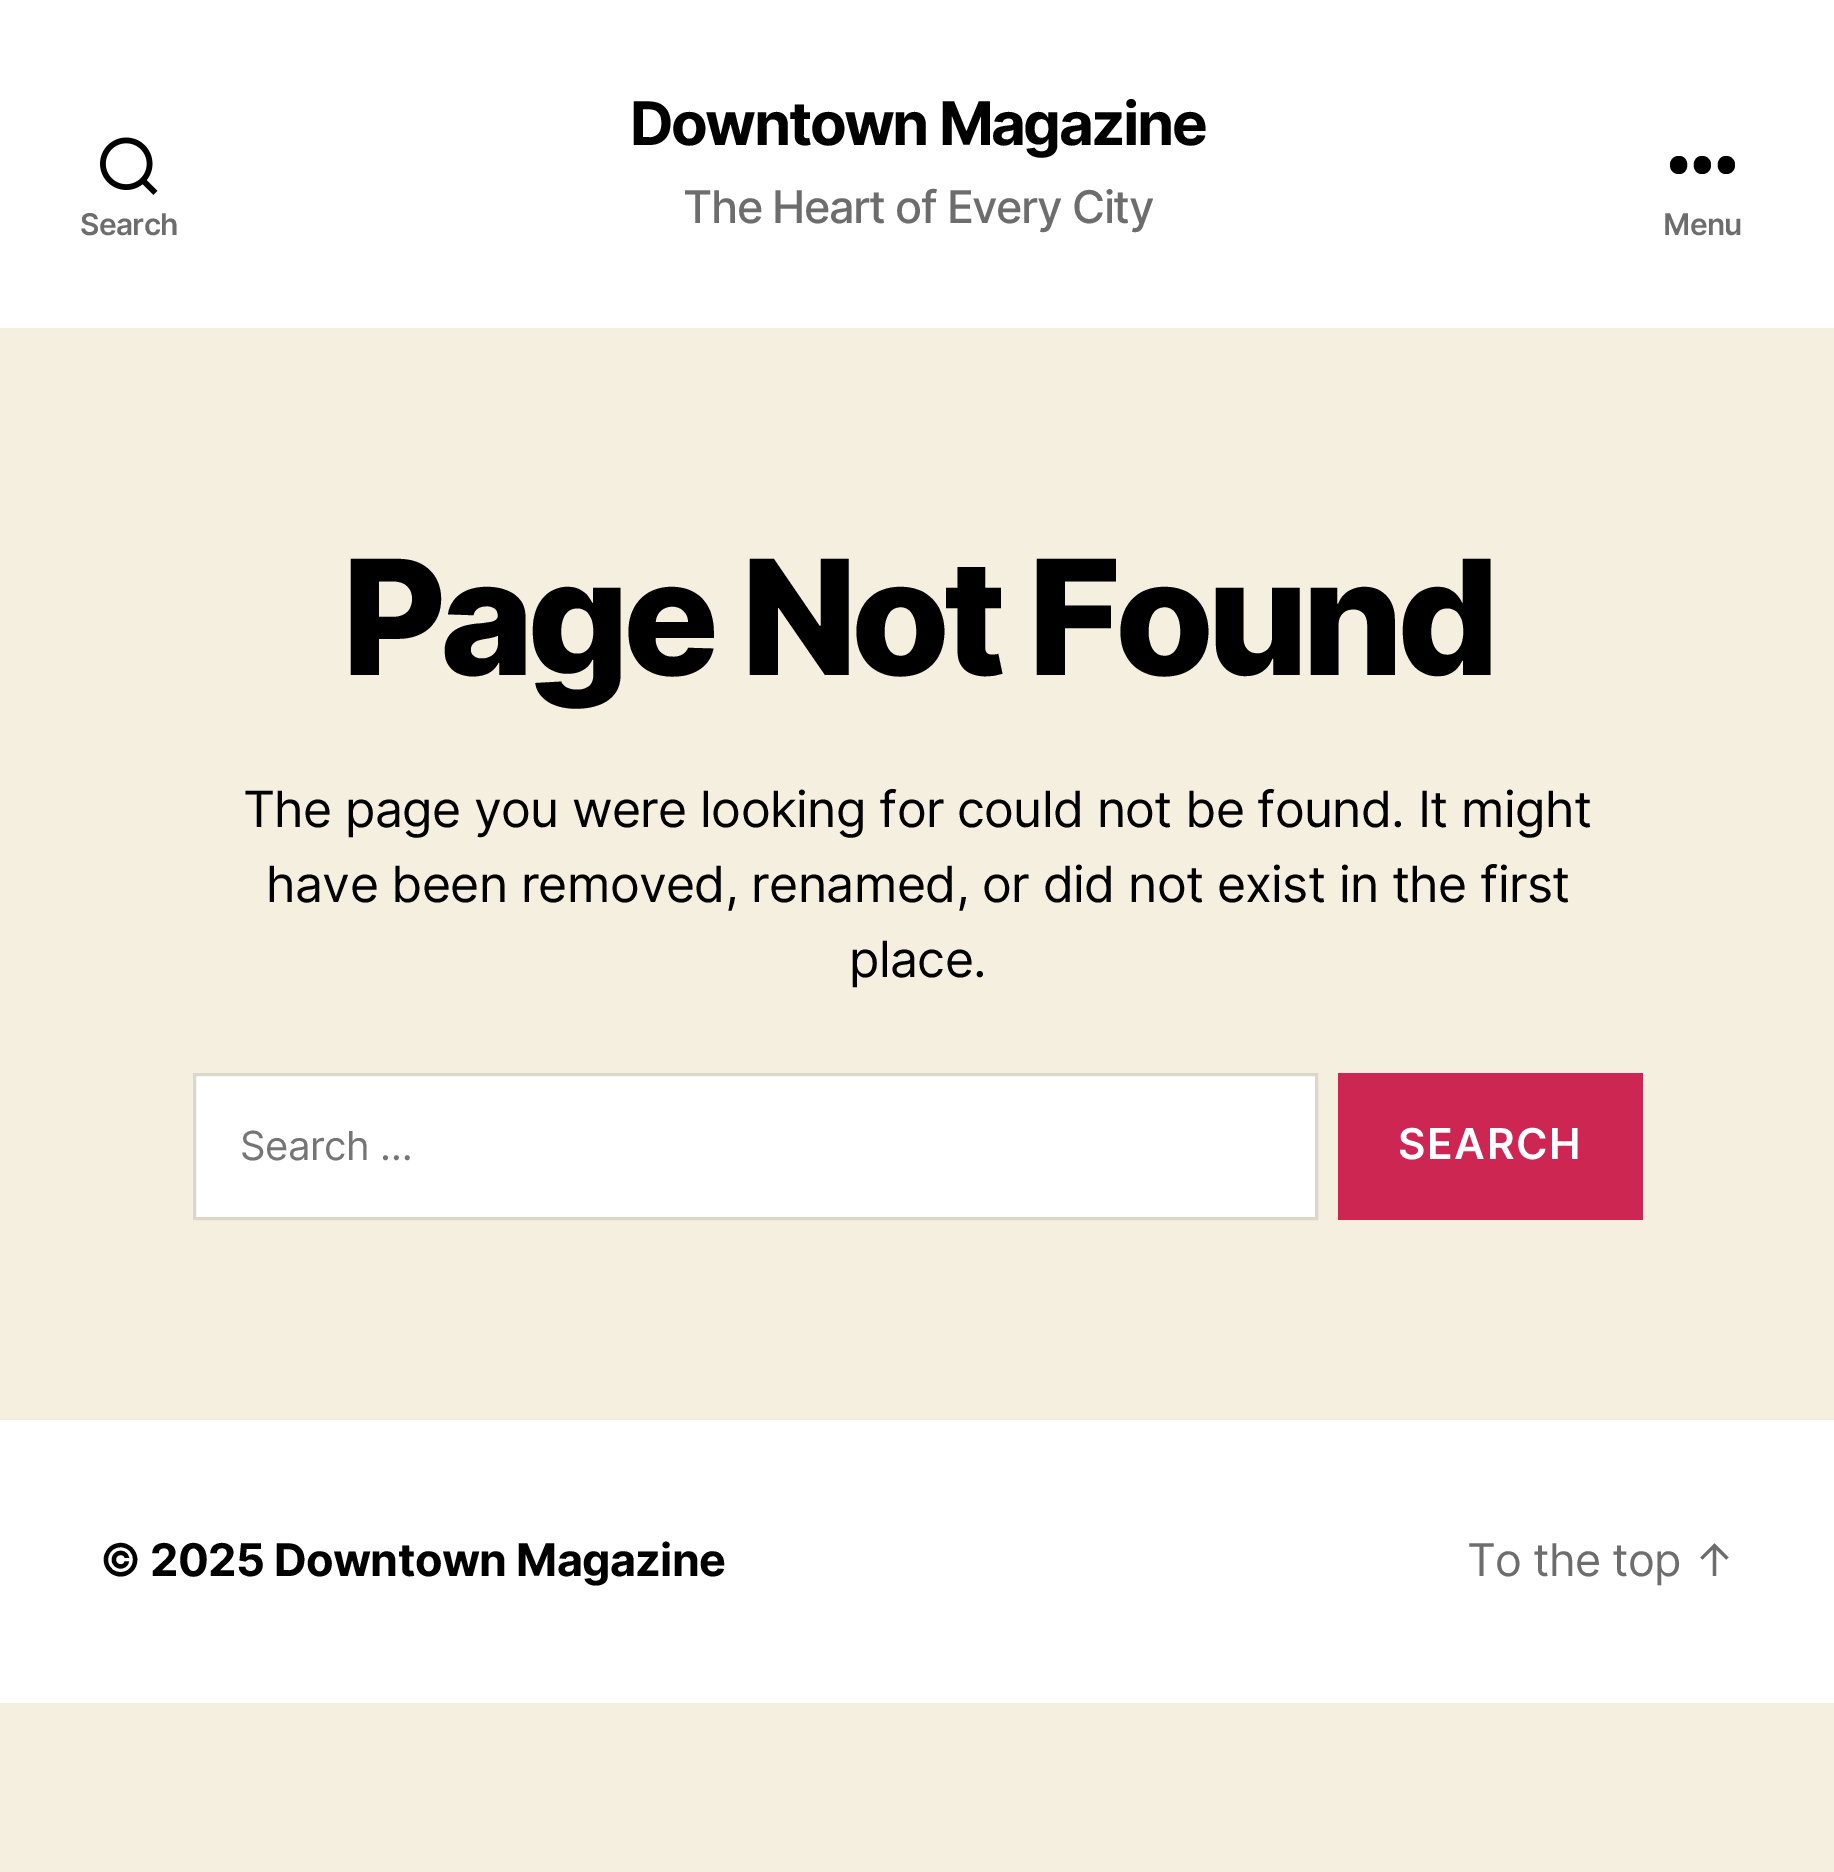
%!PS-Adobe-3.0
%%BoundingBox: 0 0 1834 1872
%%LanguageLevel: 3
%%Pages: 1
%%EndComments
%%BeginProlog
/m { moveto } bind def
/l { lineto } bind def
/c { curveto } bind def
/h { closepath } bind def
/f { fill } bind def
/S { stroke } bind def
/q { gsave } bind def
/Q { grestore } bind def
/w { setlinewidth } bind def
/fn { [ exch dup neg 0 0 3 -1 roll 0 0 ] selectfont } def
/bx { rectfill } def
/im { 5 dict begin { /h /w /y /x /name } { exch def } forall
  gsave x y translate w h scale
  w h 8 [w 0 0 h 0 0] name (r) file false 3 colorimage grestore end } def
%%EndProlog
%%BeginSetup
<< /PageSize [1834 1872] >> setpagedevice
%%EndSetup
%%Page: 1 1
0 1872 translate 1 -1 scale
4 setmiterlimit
0.961 0.937 0.878 setrgbcolor
0 0 1834 1872 bx
1 setgray
0 0 1834 328 bx
(image0.raw) 100 137 58 58 im
/Inter-SemiBold 30 fn
0.427 setgray
80 235 m -0.68 0 (Search) ashow
/Inter-Bold 60 fn
0 setgray
630 145 m -2.5 0 (Downtown Magazine) ashow
/Inter-Medium 45 fn
0.427 setgray
683 223 m -1.4 0 (The Heart of Every City) ashow
0 setgray
1679 174 m 1667 174 1667 156 1679 156 c 1690 156 1690 174 1679 174 c h 1702 174 m 1691 174 1691 156 1702 156 c 1714 156 1714 174 1702 174 c h 1726 174 m 1715 174 1715 156 1726 156 c 1738 156 1738 174 1726 174 c h eofill
/Inter-SemiBold 30 fn
0.427 setgray
1663 235 m -0.68 0 (Menu) ashow
/Inter-ExtraBold 160 fn
0 setgray
342 675 m -6.6 0 (Page Not Found) ashow
/Inter-Regular 50 fn
243 827 m -0.68 0 (The page you were looking for could not be found. It might) ashow
266 902 m -0.68 0 (have been removed, renamed, or did not exist in the first) ashow
849 977 m -0.68 0 (place.) ashow
1 setgray
194.5 1074.5 m 1316.5 1074.5 l 1316.5 1218.5 l 194.5 1218.5 l h q f Q
0.863 0.843 0.792 setrgbcolor
3 w
S
/Inter-Regular 40 fn
0.459 setgray
240 1160 m -0.5 0 (Search …) ashow
0.804 0.149 0.325 setrgbcolor
1338 1073 305 147 bx
/Inter-SemiBold 42.5 fn
1 setgray
1398 1159 m 1.5 0 (SEARCH) ashow
0 1420 1834 283 bx
/Inter-Bold 45 fn
0 setgray
100 1576 m -0.68 0 (© 2025 Downtown Magazine) ashow
/Inter-Regular 45 fn
0.427 setgray
1467 1576 m -0.68 0 (To the top ↑) ashow
showpage
%%EOF
